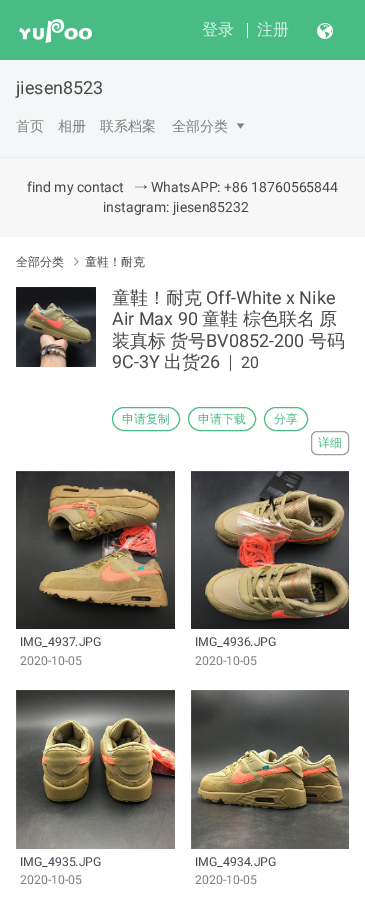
%!PS-Adobe-3.0
%%BoundingBox: 0 0 365 900
%%LanguageLevel: 3
%%Pages: 1
%%EndComments
%%BeginProlog
/m { moveto } bind def
/l { lineto } bind def
/h { closepath } bind def
/f { fill } bind def
/S { stroke } bind def
/fn { [ exch dup neg 0 0 3 -1 roll 0 0 ] selectfont } def
/tx { moveto show } def
/bx { rectfill } def
/rr { 5 dict begin { /r /h /w /y /x } { exch def } forall
  x r add y moveto x w add y 2 copy h add r arct x w add y h add x 1 index r arct
  x y h add x y r arct x y 2 copy exch w add exch r arct closepath end } def
/im { 5 dict begin { /h /w /y /x /name } { exch def } forall
  gsave x y translate w h scale
  w h 8 [w 0 0 h 0 0] name (r) file false 3 colorimage grestore end } def
%%EndProlog
%%BeginSetup
<< /PageSize [365 900] >> setpagedevice
%%EndSetup
%%Page: 1 1
0 900 translate 1 -1 scale
4 setmiterlimit
1 setgray
0 0 365 900 bx
0.286 0.737 0.522 setrgbcolor
0 0 365 60 bx
(image0.raw) 19 19 73 24 im
/WenQuanYiZenHei-Medium 16 fn
0.859 0.949 0.906 setrgbcolor
(登录) 202 35 tx
1 setgray
247 23 1 15 bx
0.859 0.949 0.906 setrgbcolor
(注册) 257 35 tx
(image1.raw) 317 23 16 16 im
0.953 0.969 0.969 setrgbcolor
0 60 365 97 bx
/Roboto-Regular 18 fn
0.286 setgray
(jiesen8523) 16 94 tx
/WenQuanYiZenHei-Medium 14 fn
0.498 setgray
(首页) 16 131 tx
(相册) 58 131 tx
(联系档案) 100 131 tx
(全部分类) 172 131 tx
240.5 128.5 m 237 123.5 l 244 123.5 l h f
0.969 setgray
0 158 365 79 bx
0.925 setgray
0 157 365 1 bx
/Roboto-Regular 14 fn
0.286 setgray
(find my contact) 27 192 tx
/WenQuanYiZenHei-Medium 14 fn
(→) 134 192 tx
/Roboto-Regular 14 fn
(WhatsAPP: +86 18760565844) 151 192 tx
(instagram: jiesen85232) 103 212 tx
/WenQuanYiZenHei-Medium 12 fn
(全部分类) 16 266 tx
(image2.raw) 74 257 5 9 im
(童鞋！耐克) 85 266 tx
(image3.raw) 16 287 80 80 im
/WenQuanYiZenHei-Medium 18 fn
(童鞋！耐克) 112 304 tx
/Roboto-Regular 18 fn
(Off-White x Nike) 206 304 tx
(Air Max 90) 112 325 tx
/WenQuanYiZenHei-Medium 18 fn
(童鞋) 202 325 tx
(棕色联名) 243 325 tx
(原) 319 325 tx
(装真标) 112 347 tx
(货号) 170 347 tx
/Roboto-Regular 18 fn
(BV0852-200) 206 347 tx
/WenQuanYiZenHei-Medium 18 fn
(号码) 309 347 tx
/Roboto-Regular 18 fn
(9C-3Y) 112 368 tx
/WenQuanYiZenHei-Medium 18 fn
(出货) 164 368 tx
/Roboto-Regular 18 fn
(26) 200 368 tx
230 355 1 16 bx
/Roboto-Regular 16 fn
(20) 241 368 tx
0.286 0.737 0.522 setrgbcolor
112.5 407.5 67 23 11.5 rr S
/WenQuanYiZenHei-Medium 12 fn
(申请复制) 122 423 tx
188.5 407.5 67 23 11.5 rr S
(申请下载) 198 423 tx
264.5 407.5 43 23 11.5 rr S
(分享) 274 423 tx
0.624 setgray
311.5 431.5 37 23 5.5 rr S
0.286 0.737 0.522 setrgbcolor
(详细) 318 447 tx
(image4.raw) 16 471 159 158 im
/Roboto-Regular 12.25 fn
0.286 setgray
(IMG_4937.JPG) 20 646 tx
0.498 setgray
(2020-10-05) 20 665 tx
(image5.raw) 191 471 158 158 im
0.286 setgray
(IMG_4936.JPG) 195 646 tx
0.498 setgray
(2020-10-05) 195 665 tx
(image6.raw) 16 690 159 159 im
0.286 setgray
(IMG_4935.JPG) 20 866 tx
0.498 setgray
(2020-10-05) 20 884 tx
(image7.raw) 191 690 158 159 im
0.286 setgray
(IMG_4934.JPG) 195 866 tx
0.498 setgray
(2020-10-05) 195 884 tx
showpage
%%EOF
